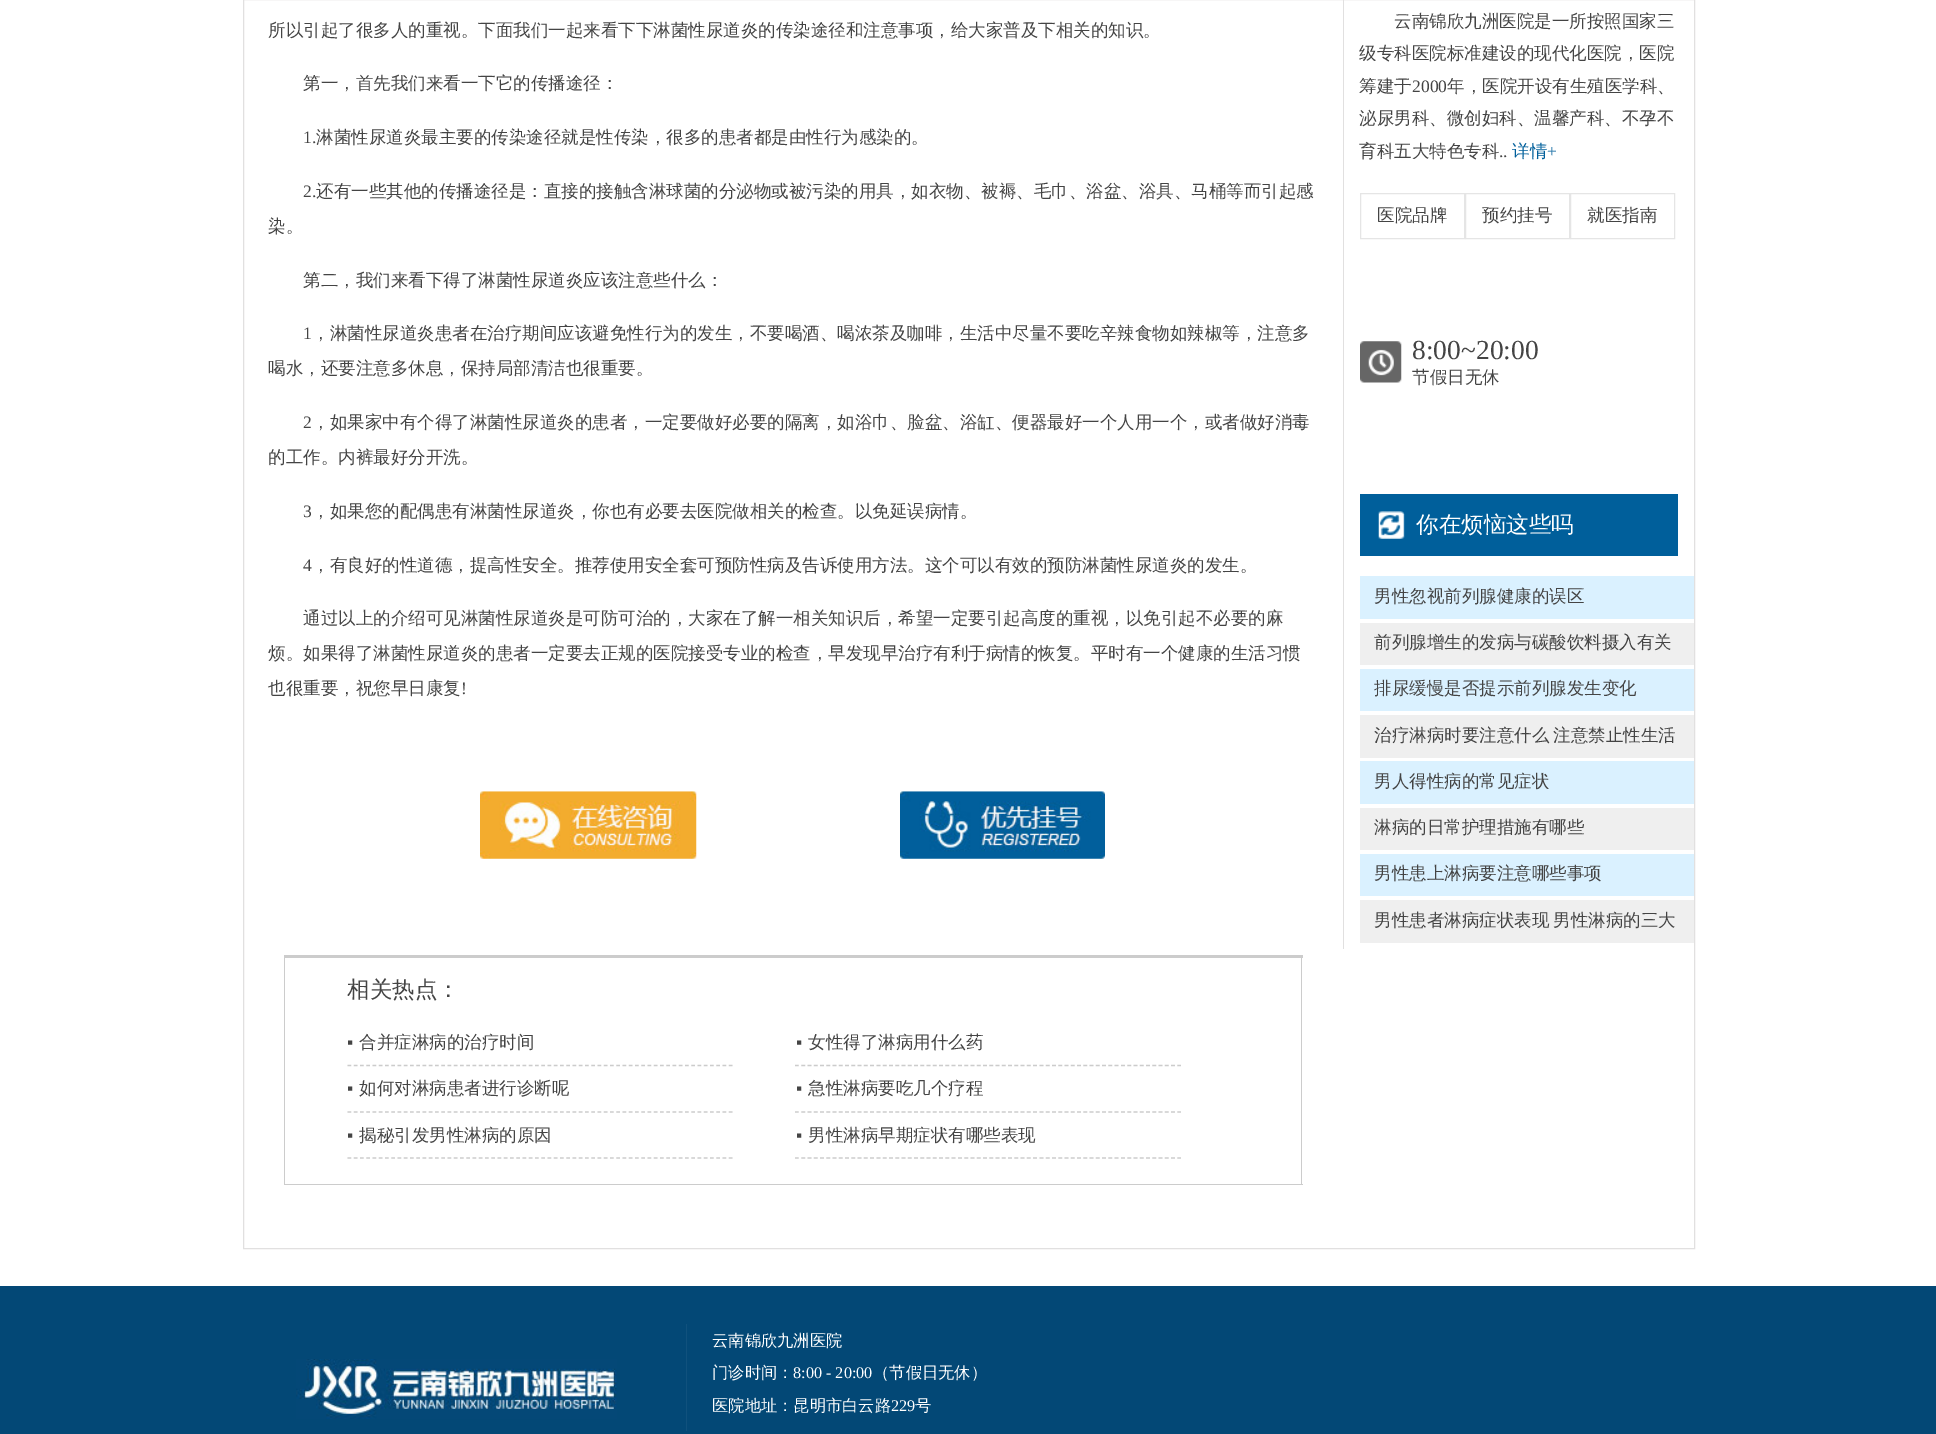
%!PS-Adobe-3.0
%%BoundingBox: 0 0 1936 1434
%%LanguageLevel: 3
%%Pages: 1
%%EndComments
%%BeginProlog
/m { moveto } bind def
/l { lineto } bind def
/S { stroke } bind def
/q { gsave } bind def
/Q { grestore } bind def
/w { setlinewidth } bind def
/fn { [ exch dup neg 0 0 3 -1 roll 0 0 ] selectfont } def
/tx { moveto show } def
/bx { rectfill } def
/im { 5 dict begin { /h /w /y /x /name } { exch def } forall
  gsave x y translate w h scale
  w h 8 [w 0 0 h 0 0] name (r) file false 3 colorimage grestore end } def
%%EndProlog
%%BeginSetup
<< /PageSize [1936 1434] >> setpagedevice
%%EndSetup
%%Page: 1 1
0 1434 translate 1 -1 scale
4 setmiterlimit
1 setgray
0 0 1936 1434 bx
0.882 0.878 0.878 setrgbcolor
243.5 -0.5 1451 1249 rectstroke
/WenQuanYiZenHei-Medium 17.5 fn
0.267 setgray
(所以引起了很多人的重视。下面我们一起来看下下淋菌性尿道炎的传染途径和注意事项，给大家普及下相关的知识。) 268 36 tx
(第一，首先我们来看一下它的传播途径：) 303 89 tx
/LiberationSerif-Regular 17.5 fn
(1.) 303 143 tx
/WenQuanYiZenHei-Medium 17.5 fn
(淋菌性尿道炎最主要的传染途径就是性传染，很多的患者都是由性行为感染的。) 316 143 tx
/LiberationSerif-Regular 17.5 fn
(2.) 303 197 tx
/WenQuanYiZenHei-Medium 17.5 fn
(还有一些其他的传播途径是：直接的接触含淋球菌的分泌物或被污染的用具，如衣物、被褥、毛巾、浴盆、浴具、马桶等而引起感) 316 197 tx
(染。) 268 232 tx
(第二，我们来看下得了淋菌性尿道炎应该注意些什么：) 303 286 tx
/LiberationSerif-Regular 17.5 fn
(1) 303 339 tx
/WenQuanYiZenHei-Medium 17.5 fn
(，淋菌性尿道炎患者在治疗期间应该避免性行为的发生，不要喝酒、喝浓茶及咖啡，生活中尽量不要吃辛辣食物如辣椒等，注意多) 312 339 tx
(喝水，还要注意多休息，保持局部清洁也很重要。) 268 374 tx
/LiberationSerif-Regular 17.5 fn
(2) 303 428 tx
/WenQuanYiZenHei-Medium 17.5 fn
(，如果家中有个得了淋菌性尿道炎的患者，一定要做好必要的隔离，如浴巾、脸盆、浴缸、便器最好一个人用一个，或者做好消毒) 312 428 tx
(的工作。内裤最好分开洗。) 268 463 tx
/LiberationSerif-Regular 17.5 fn
(3) 303 517 tx
/WenQuanYiZenHei-Medium 17.5 fn
(，如果您的配偶患有淋菌性尿道炎，你也有必要去医院做相关的检查。以免延误病情。) 312 517 tx
/LiberationSerif-Regular 17.5 fn
(4) 303 571 tx
/WenQuanYiZenHei-Medium 17.5 fn
(，有良好的性道德，提高性安全。推荐使用安全套可预防性病及告诉使用方法。这个可以有效的预防淋菌性尿道炎的发生。) 312 571 tx
(通过以上的介绍可见淋菌性尿道炎是可防可治的，大家在了解一相关知识后，希望一定要引起高度的重视，以免引起不必要的麻) 303 624 tx
(烦。如果得了淋菌性尿道炎的患者一定要去正规的医院接受专业的检查，早发现早治疗有利于病情的恢复。平时有一个健康的生活习惯) 268 659 tx
(也很重要，祝您早日康复) 268 694 tx
/LiberationSerif-Regular 17.5 fn
(!) 461 694 tx
(image0.raw) 480 791 217 68 im
(image1.raw) 900 791 205 68 im
0.8 setgray
284 955 1019 3 bx
1301 955 1 230 bx
284 1184 1019 1 bx
284 955 1 230 bx
/WenQuanYiZenHei-Medium 22.5 fn
0.267 setgray
(相关热点：) 347 997 tx
0.8 setgray
1.2 w
[3.75 2.5] 0 setdash
347.5 1065.5 m 732.5 1065.5 l S
q
348 1020 385 45 rectclip
/LiberationSerif-Regular 17.5 fn
0.267 setgray
(▪) 347 1048 tx
Q
/WenQuanYiZenHei-Medium 17.5 fn
0.267 setgray
(合并症淋病的治疗时间) 359 1048 tx
0.8 setgray
[3.75 2.52] 0 setdash
795 1065.5 m 1181 1065.5 l S
/LiberationSerif-Regular 17.5 fn
0.267 setgray
(▪) 796 1048 tx
/WenQuanYiZenHei-Medium 17.5 fn
(女性得了淋病用什么药) 808 1048 tx
0.8 setgray
[3.75 2.5] 0 setdash
347.5 1112 m 732.5 1112 l S
q
348 1066 385 45 rectclip
/LiberationSerif-Regular 17.5 fn
0.267 setgray
(▪) 347 1094 tx
Q
0.267 setgray
(如何对淋病患者进行诊断呢) 359 1094 tx
0.8 setgray
[3.75 2.52] 0 setdash
795 1112 m 1181 1112 l S
/LiberationSerif-Regular 17.5 fn
0.267 setgray
(▪) 796 1094 tx
/WenQuanYiZenHei-Medium 17.5 fn
(急性淋病要吃几个疗程) 808 1094 tx
0.8 setgray
[3.75 2.5] 0 setdash
347.5 1158 m 732.5 1158 l S
q
348 1113 385 45 rectclip
/LiberationSerif-Regular 17.5 fn
0.267 setgray
(▪) 347 1141 tx
Q
0.267 setgray
(揭秘引发男性淋病的原因) 359 1141 tx
0.8 setgray
[3.75 2.52] 0 setdash
795 1158 m 1181 1158 l S
/LiberationSerif-Regular 17.5 fn
0.267 setgray
(▪) 796 1141 tx
/WenQuanYiZenHei-Medium 17.5 fn
(男性淋病早期症状有哪些表现) 808 1141 tx
0.882 0.878 0.878 setrgbcolor
1343 0 1 949 bx
0.267 setgray
(云南锦欣九洲医院是一所按照国家三) 1394 27 tx
(级专科医院标准建设的现代化医院，医院) 1359 59 tx
(筹建于) 1359 92 tx
/LiberationSerif-Regular 17.5 fn
(2000) 1412 92 tx
/WenQuanYiZenHei-Medium 17.5 fn
(年，医院开设有生殖医学科、) 1447 92 tx
(泌尿男科、微创妇科、温馨产科、不孕不) 1359 124 tx
(育科五大特色专科) 1359 157 tx
0 0.373 0.608 setrgbcolor
(详情) 1512 157 tx
/LiberationSerif-Regular 17.5 fn
(+) 1547 157 tx
0.267 setgray
(..) 1499 157 tx
0.898 setgray
1 w
[] 0 setdash
1360.5 193.5 104 45 rectstroke
/WenQuanYiZenHei-Medium 17.5 fn
0.267 setgray
(医院品牌) 1377 221 tx
0.898 setgray
1465.5 193.5 104 45 rectstroke
0.267 setgray
(预约挂号) 1482 221 tx
0.898 setgray
1570.5 193.5 104 45 rectstroke
0.267 setgray
(就医指南) 1587 221 tx
(image2.raw) 1360 341 42 42 im
/LiberationSerif-Regular 27.5 fn
(8:00~20:00) 1412 359 tx
/WenQuanYiZenHei-Medium 17.5 fn
(节假日无休) 1412 383 tx
0 0.373 0.608 setrgbcolor
1360 494 318 62 bx
(image3.raw) 1378 511 27 28 im
/WenQuanYiZenHei-Medium 22.5 fn
1 setgray
(你在烦恼这些吗) 1416 532 tx
0.855 0.945 1 setrgbcolor
1360 576 334 43 bx
/WenQuanYiZenHei-Medium 17.5 fn
0.267 setgray
(男性忽视前列腺健康的误区) 1374 602 tx
0.937 setgray
1360 623 334 42 bx
0.267 setgray
(前列腺增生的发病与碳酸饮料摄入有关) 1374 648 tx
0.855 0.945 1 setrgbcolor
1360 669 334 42 bx
0.267 setgray
(排尿缓慢是否提示前列腺发生变化) 1374 694 tx
0.937 setgray
1360 715 334 43 bx
0.267 setgray
1374 741 m -1 0 32 (治疗淋病时要注意什么 注意禁止性生活) widthshow
0.855 0.945 1 setrgbcolor
1360 761 334 43 bx
0.267 setgray
(男人得性病的常见症状) 1374 787 tx
0.937 setgray
1360 808 334 42 bx
0.267 setgray
(淋病的日常护理措施有哪些) 1374 833 tx
0.855 0.945 1 setrgbcolor
1360 854 334 42 bx
0.267 setgray
(男性患上淋病要注意哪些事项) 1374 879 tx
0.937 setgray
1360 900 334 43 bx
0.267 setgray
1374 926 m -1 0 32 (男性患者淋病症状表现 男性淋病的三大) widthshow
0.012 0.282 0.463 setrgbcolor
0 1286 1936 148 bx
0.063 0.318 0.49 setrgbcolor
686 1324 1 107 bx
(image4.raw) 296 1359 321 60 im
/WenQuanYiZenHei-Medium 16.25 fn
1 setgray
(云南锦欣九洲医院) 712 1346 tx
(门诊时间：) 712 1378 tx
/LiberationSerif-Regular 16.25 fn
(8:00 - 20:00) 793 1378 tx
/WenQuanYiZenHei-Medium 16.25 fn
(（节假日无休）) 873 1378 tx
(医院地址：昆明市白云路) 712 1411 tx
/LiberationSerif-Regular 16.25 fn
(229) 891 1411 tx
/WenQuanYiZenHei-Medium 16.25 fn
(号) 915 1411 tx
showpage
%%EOF
